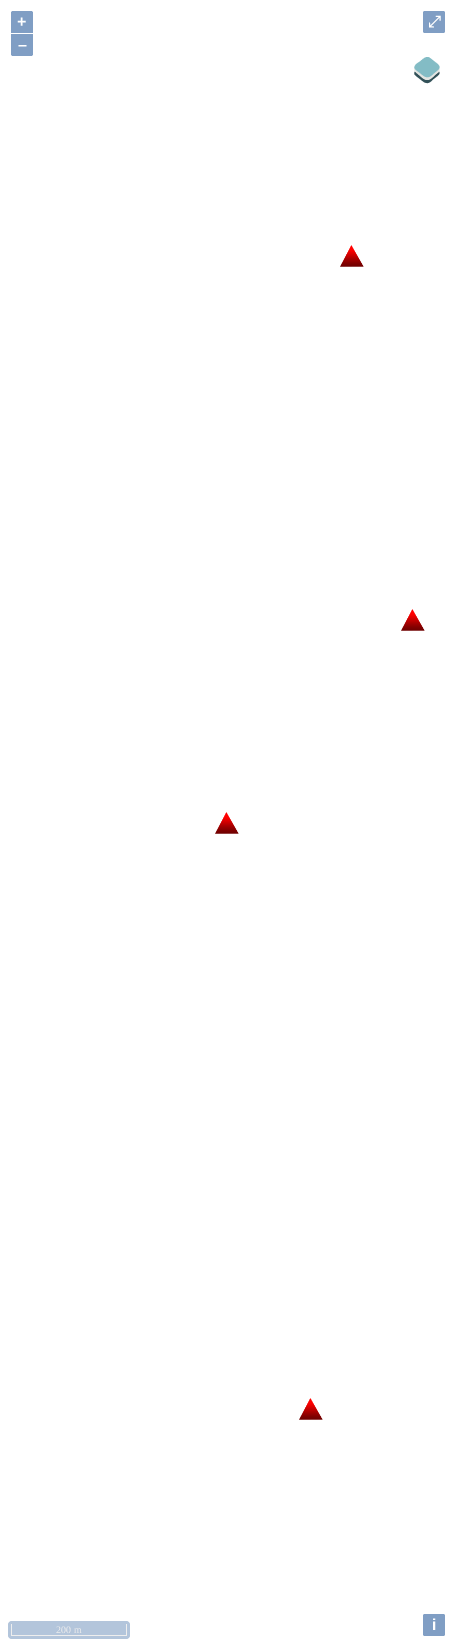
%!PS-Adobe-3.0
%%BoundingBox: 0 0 456 1647
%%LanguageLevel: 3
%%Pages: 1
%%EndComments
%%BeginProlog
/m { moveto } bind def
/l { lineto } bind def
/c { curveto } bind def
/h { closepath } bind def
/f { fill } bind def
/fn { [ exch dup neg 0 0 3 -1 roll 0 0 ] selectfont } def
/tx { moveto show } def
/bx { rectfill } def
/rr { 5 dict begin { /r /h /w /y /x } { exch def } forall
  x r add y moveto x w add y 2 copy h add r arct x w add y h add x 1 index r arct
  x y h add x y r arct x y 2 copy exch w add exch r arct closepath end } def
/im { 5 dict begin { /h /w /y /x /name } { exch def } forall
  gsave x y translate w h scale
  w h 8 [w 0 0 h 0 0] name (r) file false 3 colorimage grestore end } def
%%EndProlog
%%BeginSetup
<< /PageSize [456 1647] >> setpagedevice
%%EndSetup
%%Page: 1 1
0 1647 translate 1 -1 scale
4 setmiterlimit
1 setgray
0 0 456 1647 bx
0.502 0.62 0.769 setrgbcolor
13 11 m 31 11 l 32 11 33 12 33 13 c 33 33 l 11 33 l 11 13 l 11 12 12 11 13 11 c h f
/LiberationSans-Bold 16 fn
1 setgray
(+) 17 27 tx
0.502 0.62 0.769 setrgbcolor
11 34 m 33 34 l 33 54 l 33 55 32 56 31 56 c 13 56 l 12 56 11 55 11 54 c h f
1 setgray
(–) 18 50 tx
0.502 0.62 0.769 setrgbcolor
423 11 22 22 2 rr f
/FreeSerif-Bold 16 fn
1 setgray
(⤢) 428 27 tx
0.196 0.318 0.345 setrgbcolor
415 71.5 m 414 73 414 74 415.5 75.5 c 422.5 81 l 427.5 85 430 82.5 433.5 79 c 435.5 77.5 l 438.5 75 440.5 74 439 71.5 c 433 77 l 426.5 82 426 80.5 420 75.5 c h f
0.886 0.894 0.882 setrgbcolor
430 60.5 m 437 66.5 l 441.5 70 439.5 71.5 435.5 74.5 c 431 78.5 428.5 82.5 422.5 78 c 415.5 72 l 412 69 417.5 66 420 64 c 422.5 62 426.5 57.5 430 60.5 c h f
0.514 0.737 0.773 setrgbcolor
430 58 m 437 63.5 l 441.5 67.5 439.5 68.5 435.5 72 c 431 75.5 428.5 80 422.5 75 c 415.5 69.5 l 412 66.5 417.5 63 420 61.5 c 422.5 59.5 426.5 55 430 58 c h f
0.702 0.773 0.859 setrgbcolor
8 1621 122 18 4 rr f
0.933 setgray
126 1624 1 12 bx
11 1635 116 1 bx
11 1624 1 12 bx
/LiberationSerif-Regular 10 fn
(200 m) 56 1633 tx
0.502 0.62 0.769 setrgbcolor
423 1614 22 22 2 rr f
/LiberationSans-Bold 16 fn
1 setgray
(i) 432 1630 tx
(image0.raw) 215 245 210 1175 im
showpage
%%EOF
